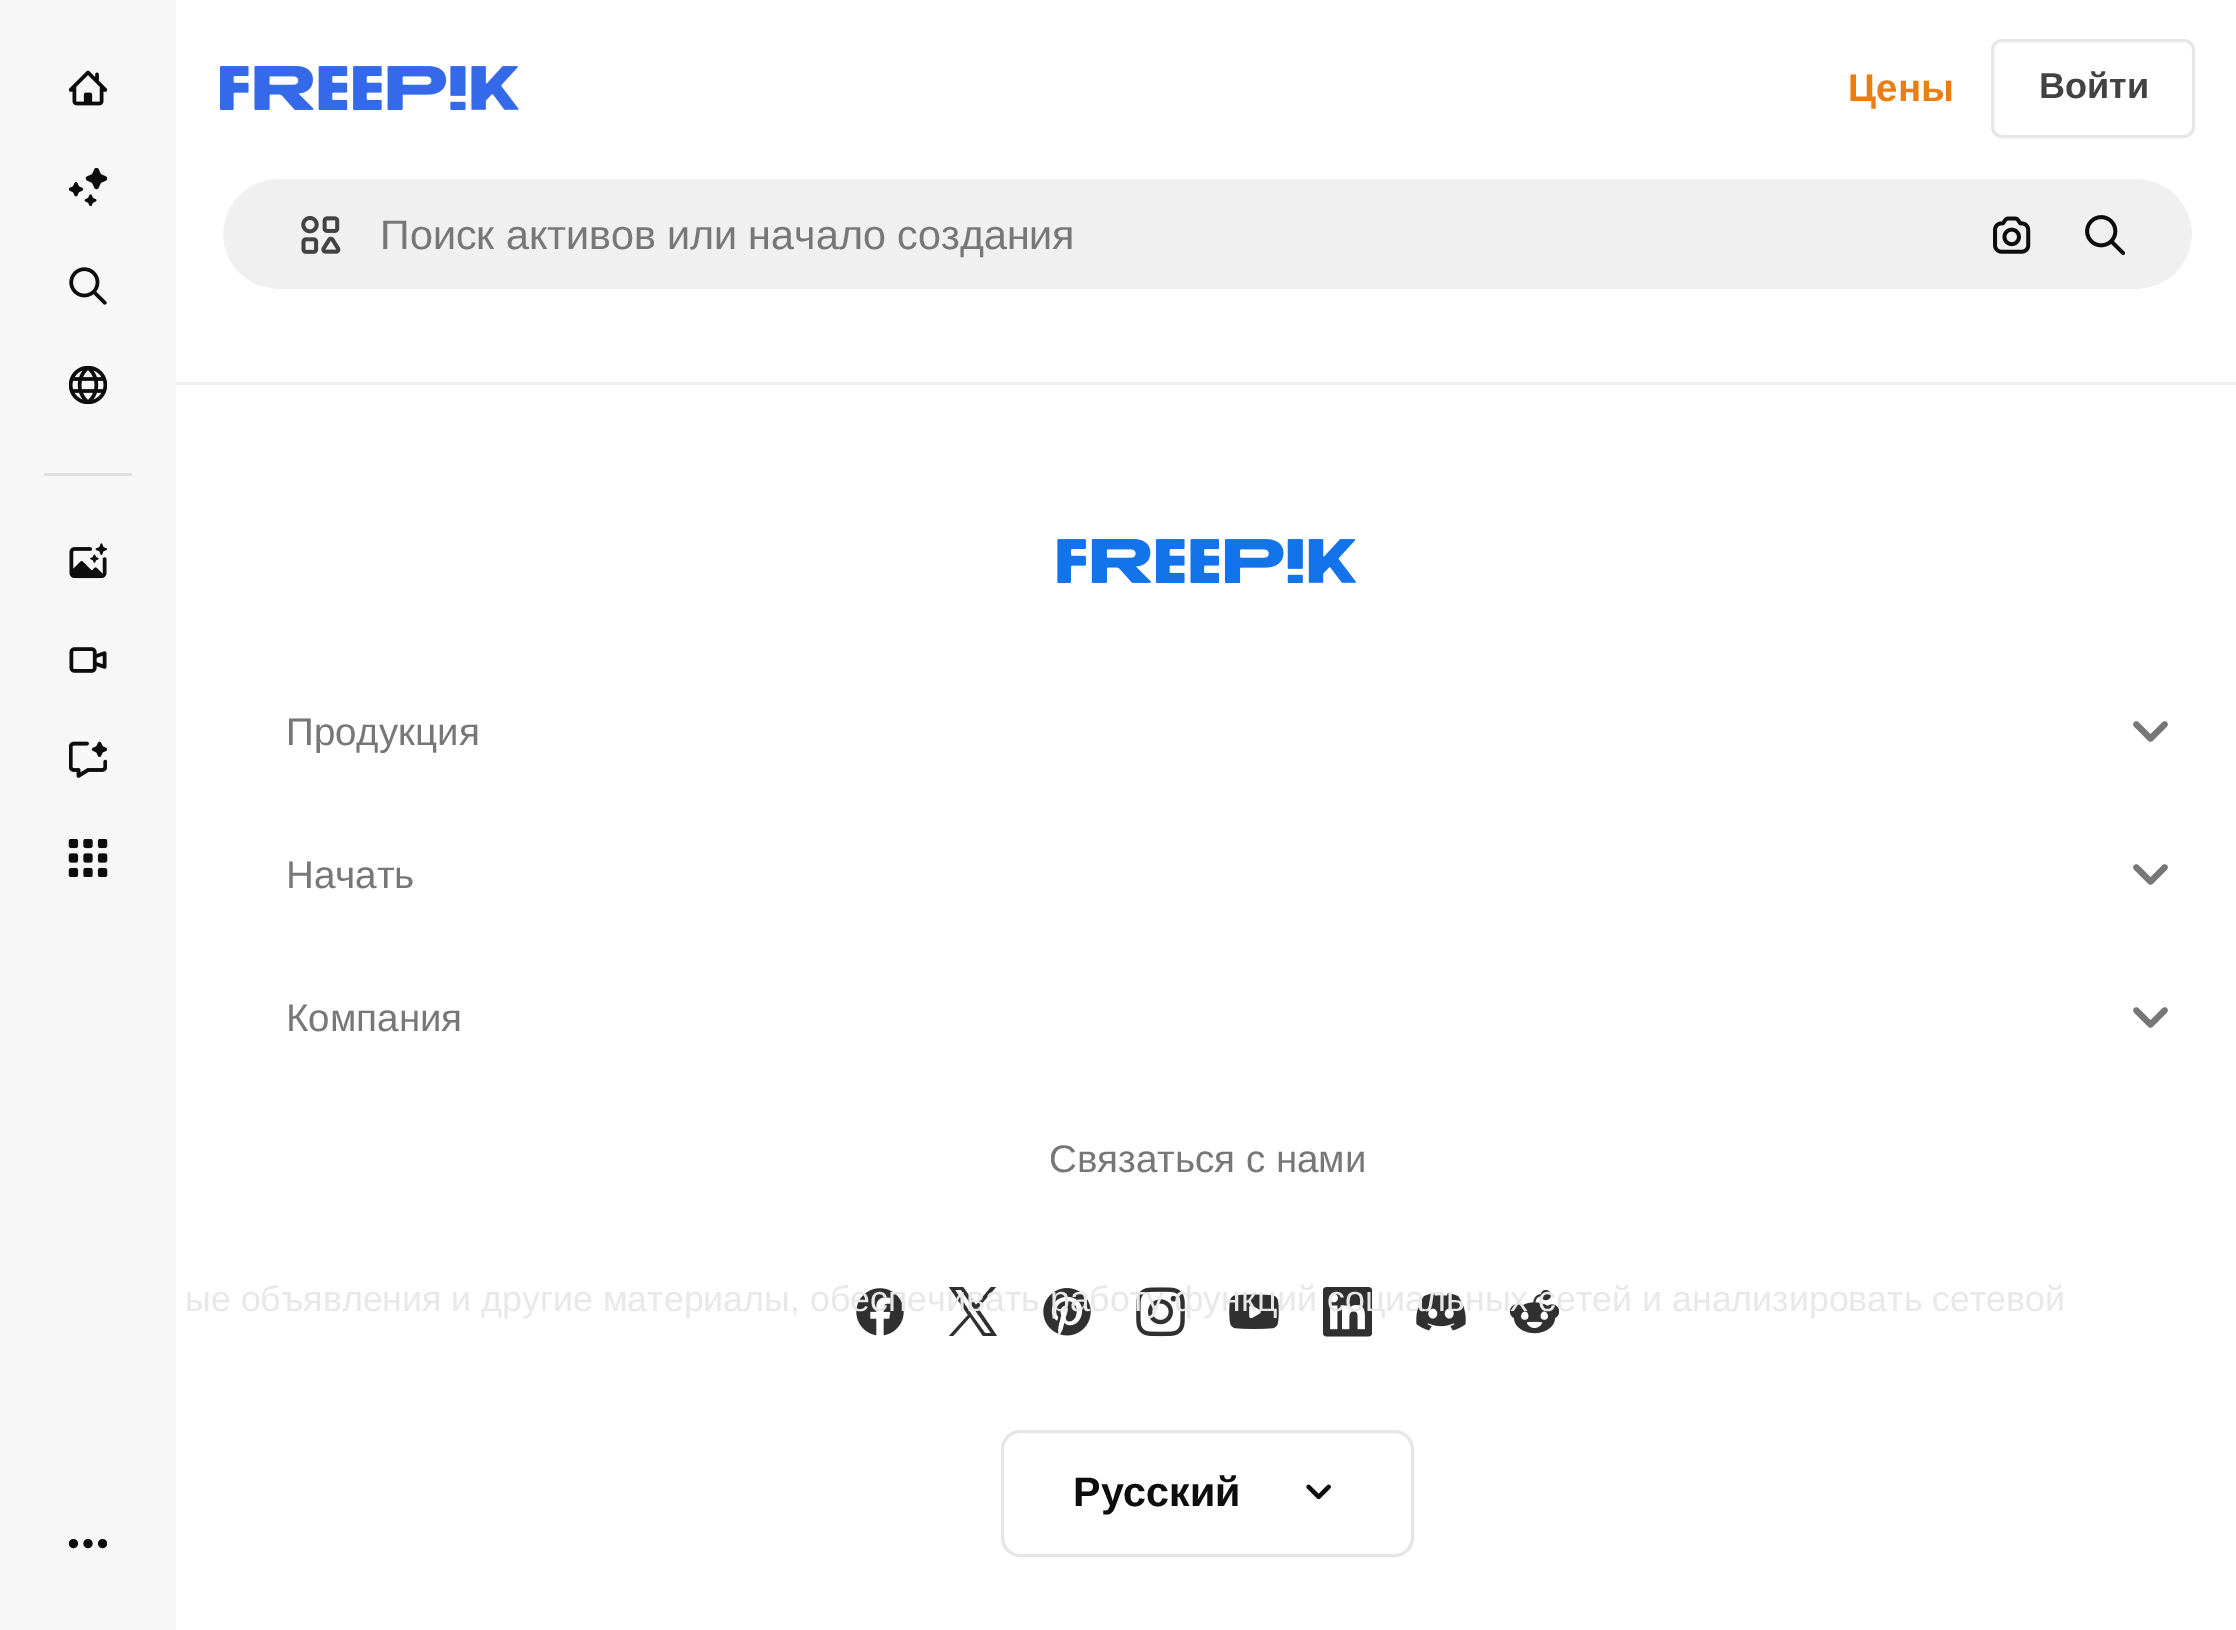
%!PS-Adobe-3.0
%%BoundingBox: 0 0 2236 1630
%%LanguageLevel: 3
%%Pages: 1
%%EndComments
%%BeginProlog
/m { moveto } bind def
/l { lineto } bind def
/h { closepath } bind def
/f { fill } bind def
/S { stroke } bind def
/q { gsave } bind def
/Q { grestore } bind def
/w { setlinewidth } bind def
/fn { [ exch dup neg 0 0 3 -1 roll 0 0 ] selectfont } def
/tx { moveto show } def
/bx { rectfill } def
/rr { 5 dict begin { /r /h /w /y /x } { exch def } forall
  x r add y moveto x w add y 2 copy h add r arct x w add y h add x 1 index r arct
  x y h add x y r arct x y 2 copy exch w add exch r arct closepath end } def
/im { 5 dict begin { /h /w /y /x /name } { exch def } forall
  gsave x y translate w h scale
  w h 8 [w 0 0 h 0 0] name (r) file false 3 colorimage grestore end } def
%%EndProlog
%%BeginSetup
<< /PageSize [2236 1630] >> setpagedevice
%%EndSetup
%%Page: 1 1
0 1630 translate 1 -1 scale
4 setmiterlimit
1 setgray
0 0 2236 1630 bx
0.969 setgray
0 0 176 1630 bx
(image0.raw) 69 70 38 36 im
(image1.raw) 69 168 38 38 im
(image2.raw) 69 267 38 38 im
(image3.raw) 69 366 38 38 im
0.878 setgray
44 473 88 3 bx
(image4.raw) 69 543 38 36 im
(image5.raw) 69 647 38 26 im
(image6.raw) 69 741 38 37 im
(image7.raw) 68 839 40 38 im
(image8.raw) 69 1538 38 11 im
(image9.raw) 220 66 299 44 im
/LiberationSans-Bold 38.5 fn
0.918 0.494 0.067 setrgbcolor
(Цены) 1848 101 tx
0.906 setgray
3 w
1992.5 40.5 201 96 9.5 rr S
/LiberationSans-Bold 36 fn
0.259 setgray
(Войти) 2039 98 tx
0.941 setgray
221.5 177.5 1972 113 56.5 rr q f Q
1 setgray
S
(image10.raw) 301 216 40 38 im
/LiberationSans-Regular 41.25 fn
0.467 setgray
(Поиск активов или начало создания) 380 249 tx
(image11.raw) 1993 216 38 38 im
(image12.raw) 2085 215 41 41 im
0.941 setgray
176 382 2060 3 bx
(image13.raw) 1057 539 299 44 im
/LiberationSans-Regular 38.5 fn
0.467 setgray
(Продукция) 286 745 tx
(image14.raw) 2133 721 35 21 im
(Начать) 286 888 tx
(image14.raw) 2133 864 35 21 im
(Компания) 286 1031 tx
(image14.raw) 2133 1007 35 21 im
(Связаться с нами) 1049 1172 tx
(image15.raw) 856 1288 48 48 im
0.188 setgray
978 1308 m 996 1287 l 991 1287 l 976 1305 l 963 1287 l 949 1287 l 968 1315 l 949 1336 l 953 1336 l 970 1317 l 983 1336 l 997 1336 l h 972 1315 m 955 1290 l 961 1290 l 991 1333 l 985 1333 l h f
(image16.raw) 1043 1288 48 48 im
(image17.raw) 1136 1287 49 50 im
(image18.raw) 1229 1294 50 35 im
(image19.raw) 1323 1287 49 50 im
(image20.raw) 1416 1293 50 38 im
(image21.raw) 1510 1289 49 45 im
0.902 setgray
1002.5 1431.5 410 124 17.5 rr S
/LiberationSans-Bold 41.25 fn
0.051 setgray
(Pусский) 1073 1506 tx
(image22.raw) 1306 1484 25 16 im
/LiberationSans-Regular 35.77 fn
0.91 setgray
(ые объявления и другие материалы, обеспечивать работу функций социальных сетей и анализировать сетевой) 185 1311 tx
showpage
%%EOF
